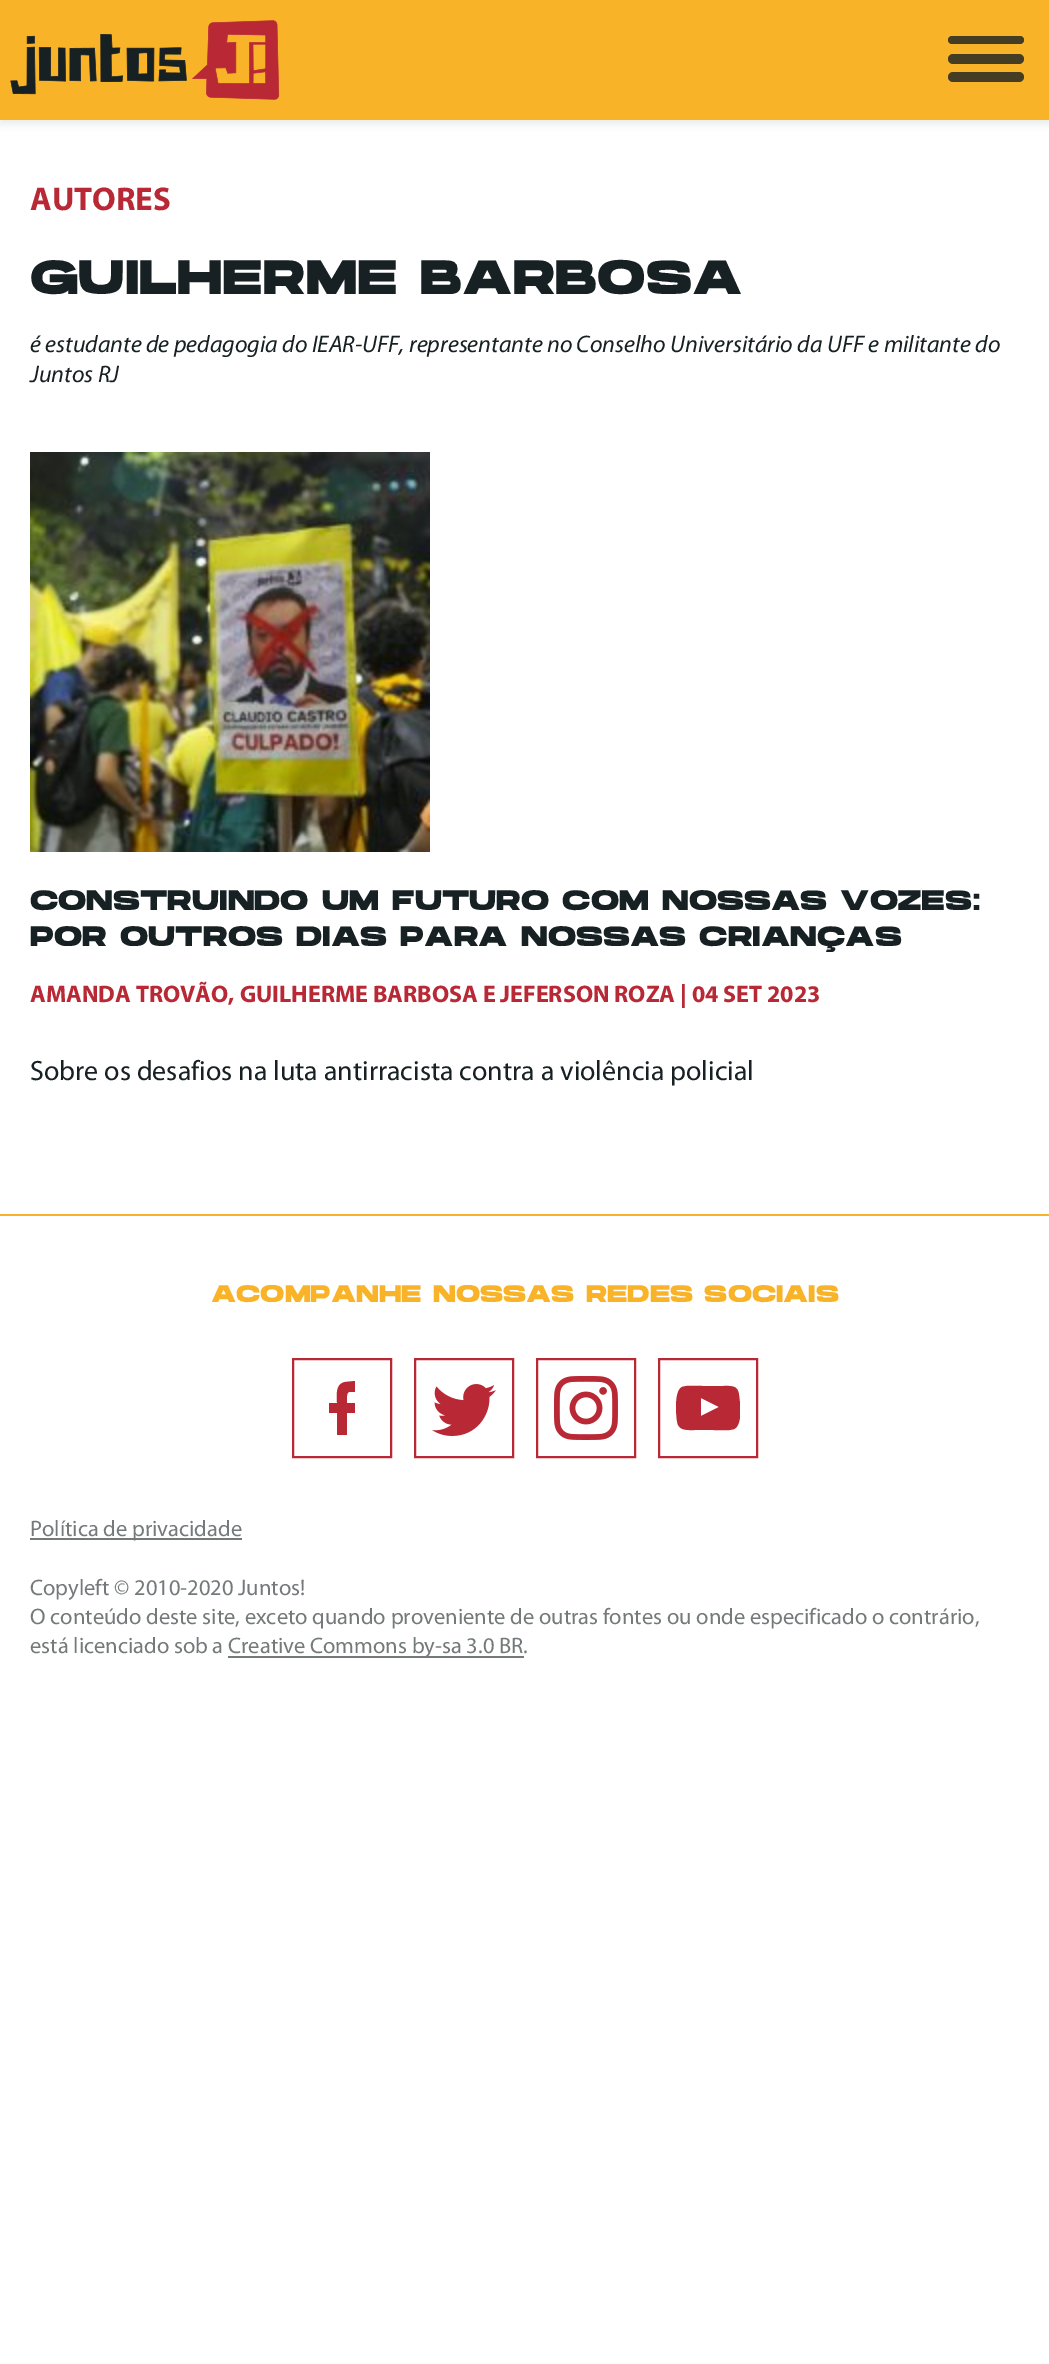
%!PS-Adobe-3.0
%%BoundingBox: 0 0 1049 2364
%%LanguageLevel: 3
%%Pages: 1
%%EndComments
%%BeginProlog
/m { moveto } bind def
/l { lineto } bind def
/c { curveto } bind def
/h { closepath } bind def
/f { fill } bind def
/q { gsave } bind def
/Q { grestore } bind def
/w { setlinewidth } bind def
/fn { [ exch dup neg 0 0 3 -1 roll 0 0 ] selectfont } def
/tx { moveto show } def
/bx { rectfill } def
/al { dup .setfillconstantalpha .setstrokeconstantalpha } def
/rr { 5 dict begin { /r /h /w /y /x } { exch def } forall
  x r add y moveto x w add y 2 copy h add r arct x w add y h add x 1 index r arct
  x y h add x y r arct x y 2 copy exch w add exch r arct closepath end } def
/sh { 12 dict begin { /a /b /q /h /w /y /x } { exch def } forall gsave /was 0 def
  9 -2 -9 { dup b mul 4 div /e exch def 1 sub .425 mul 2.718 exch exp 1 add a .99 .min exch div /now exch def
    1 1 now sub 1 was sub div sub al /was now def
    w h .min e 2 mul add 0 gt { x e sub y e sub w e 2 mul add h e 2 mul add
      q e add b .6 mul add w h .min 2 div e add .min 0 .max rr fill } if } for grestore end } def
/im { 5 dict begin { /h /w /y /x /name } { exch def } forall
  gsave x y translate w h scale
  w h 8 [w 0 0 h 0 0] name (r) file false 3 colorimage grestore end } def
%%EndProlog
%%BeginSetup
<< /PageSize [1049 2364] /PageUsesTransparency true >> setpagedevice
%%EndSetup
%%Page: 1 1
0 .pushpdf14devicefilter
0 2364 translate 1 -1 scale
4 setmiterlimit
1 setgray
0 0 1049 2364 bx
0.09 0.125 0.133 setrgbcolor
0 4 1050 120 0 4 0.1 sh
0.976 0.702 0.157 setrgbcolor
0 0 1049 120 bx
(image0.raw) 10 20 270 80 im
0.267 0.239 0.137 setrgbcolor
948 54 76 10 5 rr f
948 36 76 8 4 rr f
948 72 76 10 5 rr f
/Myriad-Bold 33 fn
0.722 0.157 0.208 setrgbcolor
(AUTORES) 30 210 tx
/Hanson-Bold 48 fn
0.09 0.125 0.133 setrgbcolor
(GUILHERME BARBOSA) 30 294 tx
/Myriad-Italic 24 fn
(é estudante de pedagogia do IEAR-UFF, representante no Conselho Universitário da UFF e militante do) 30 352 tx
(Juntos RJ) 30 382 tx
(image1.raw) 30 452 400 400 im
/Hanson-Bold 28 fn
(CONSTRUINDO UM FUTURO COM NOSSAS VOZES:) 30 910 tx
(POR OUTROS DIAS PARA NOSSAS CRIANÇAS) 30 946 tx
/Myriad-Bold 24 fn
0.722 0.157 0.208 setrgbcolor
(AMANDA TROVÃO, GUILHERME BARBOSA E JEFERSON ROZA | 04 SET 2023) 30 1002 tx
/Myriad-Regular 28 fn
0.09 0.125 0.133 setrgbcolor
(Sobre os desafios na luta antirracista contra a violência policial) 30 1080 tx
0.976 0.702 0.157 setrgbcolor
0 1214 1049 2 bx
/Hanson-Bold 24 fn
(ACOMPANHE NOSSAS REDES SOCIAIS) 211 1302 tx
0.722 0.157 0.208 setrgbcolor
2 w
293 1359 98 98 rectstroke
355 1381 m 355 1392 l 349 1392 l 346 1393 347 1400 347 1403 c 355 1403 l 355 1413 l 347 1413 l 347 1435 l 337 1435 l 337 1413 l 329 1413 l 329 1403 l 337 1403 l 337 1395 335 1384 345 1382 c h f
415 1359 98 98 rectstroke
(image2.raw) 432 1384 64 52 im
537 1359 98 98 rectstroke
(image3.raw) 554 1376 64 64 im
659 1359 98 98 rectstroke
q
676 1376 64 64 rectclip
739 1395 m 738 1385 731 1386 723 1386 c 703 1386 l 698 1386 687 1385 682 1387 c 674 1391 676 1414 677 1421 c 678 1431 687 1430 695 1430 c 713 1430 l 718 1430 729 1431 734 1429 c 743 1425 740 1402 739 1395 c h 701 1416 m 701 1398 l 719 1407 l h f
Q
0.455 0.475 0.478 setrgbcolor
30 1538 212 2 bx
/Myriad-Regular 22.5 fn
(Política de privacidade) 30 1536 tx
(Copyleft © 2010-2020 Juntos!) 30 1595 tx
(O conteúdo deste site, exceto quando proveniente de outras fontes ou onde especificado o contrário,) 30 1624 tx
(está licenciado sob a) 30 1653 tx
228 1656 296 2 bx
(Creative Commons by-sa 3.0 BR.) 228 1653 tx
.poppdf14devicefilter showpage
%%EOF
